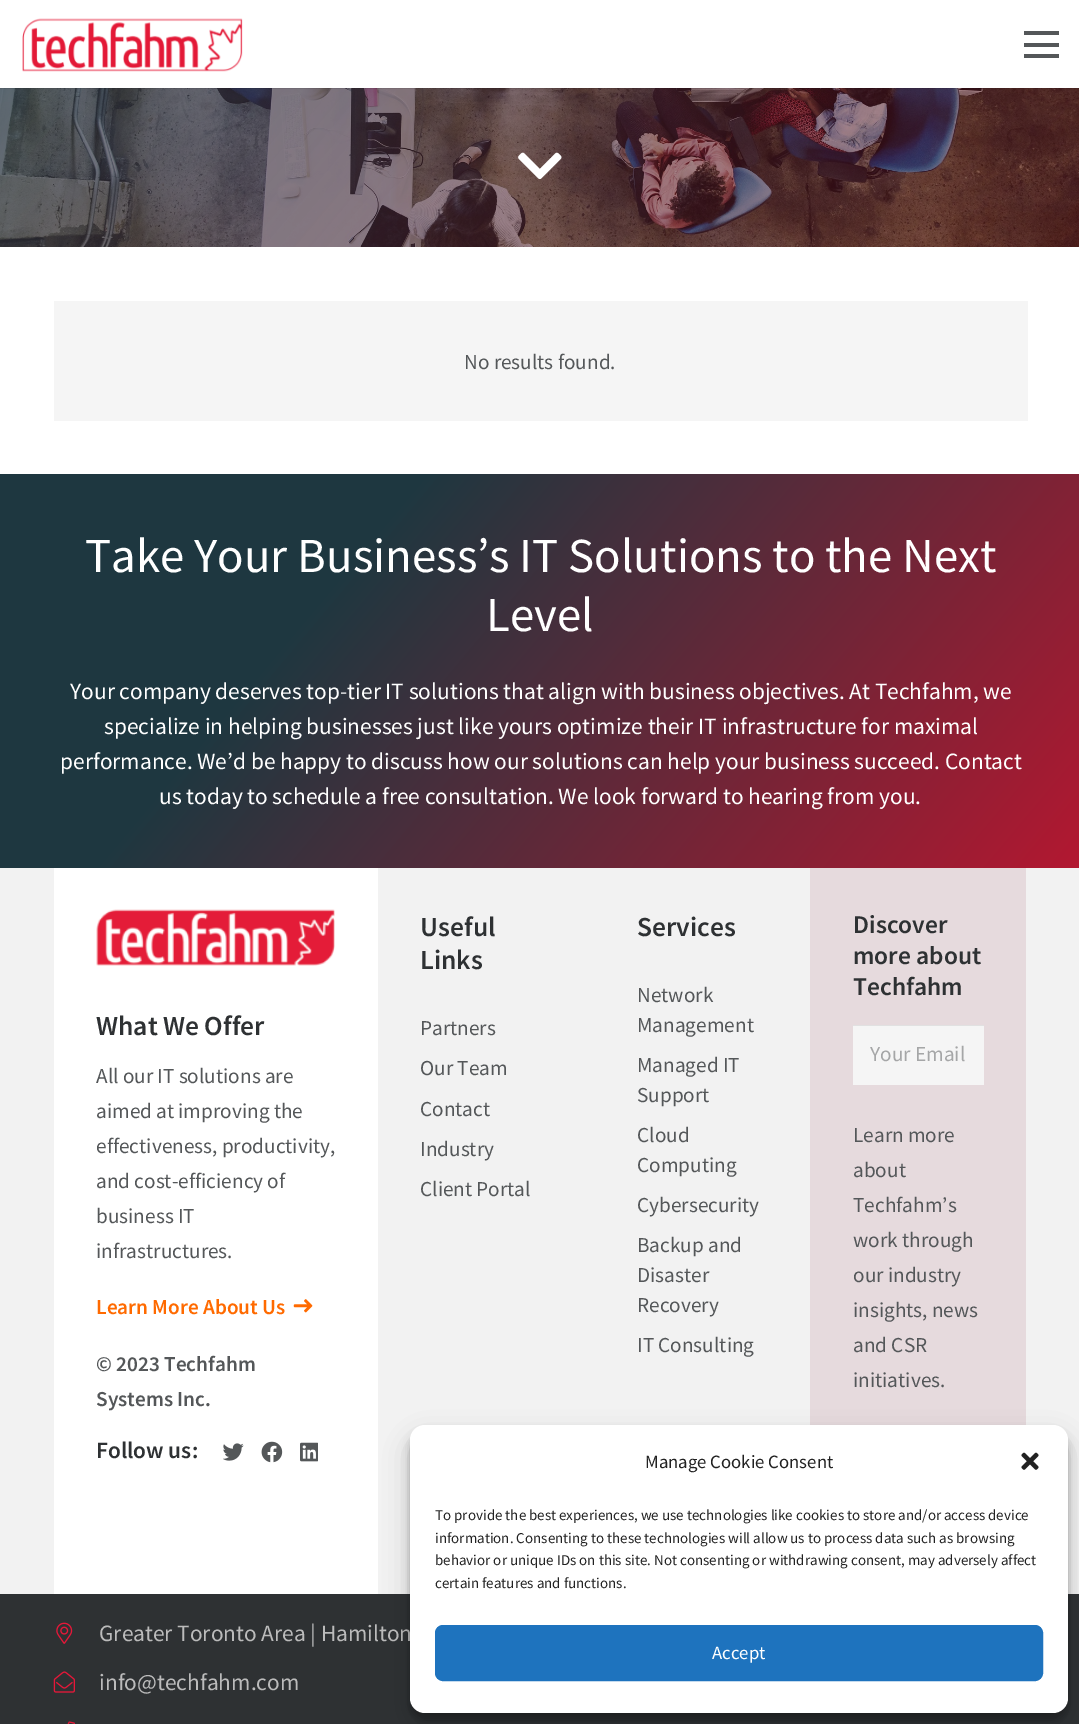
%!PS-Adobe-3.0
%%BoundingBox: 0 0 1079 1724
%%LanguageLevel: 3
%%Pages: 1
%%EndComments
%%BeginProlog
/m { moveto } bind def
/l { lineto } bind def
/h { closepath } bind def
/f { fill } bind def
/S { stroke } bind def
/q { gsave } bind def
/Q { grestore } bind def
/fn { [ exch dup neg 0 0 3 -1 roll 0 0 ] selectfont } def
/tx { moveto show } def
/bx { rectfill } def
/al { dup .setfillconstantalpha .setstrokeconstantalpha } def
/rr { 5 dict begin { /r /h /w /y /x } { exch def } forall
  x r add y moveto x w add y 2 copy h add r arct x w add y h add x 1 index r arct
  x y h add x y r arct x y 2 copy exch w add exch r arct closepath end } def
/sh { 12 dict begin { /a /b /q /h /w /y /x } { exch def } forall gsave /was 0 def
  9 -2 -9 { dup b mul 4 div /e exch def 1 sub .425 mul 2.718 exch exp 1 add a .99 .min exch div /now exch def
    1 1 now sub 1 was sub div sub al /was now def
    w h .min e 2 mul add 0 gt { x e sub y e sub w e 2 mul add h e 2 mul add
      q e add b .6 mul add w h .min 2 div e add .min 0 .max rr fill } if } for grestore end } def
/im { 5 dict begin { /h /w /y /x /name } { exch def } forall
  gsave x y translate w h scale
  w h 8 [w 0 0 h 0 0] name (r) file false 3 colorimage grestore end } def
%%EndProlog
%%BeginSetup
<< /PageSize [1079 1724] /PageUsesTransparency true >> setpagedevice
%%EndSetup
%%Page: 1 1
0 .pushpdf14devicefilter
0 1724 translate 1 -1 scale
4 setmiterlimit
1 setgray
0 0 1079 1724 bx
(image1.raw) 0 88 1079 159 im
0.08 al
0 setgray
0 88 1079 1 bx
1 al
(image0.raw) 22 18 221 54 im
0.329 0.341 0.349 setrgbcolor
1024 43 35 4 bx
1024 31 35 4 bx
1024 54 35 4 bx
(image2.raw) 518 152 44 28 im
0.961 setgray
54 301 974 120 bx
/SourceSansPro-Regular 21.25 fn
0.329 0.341 0.349 setrgbcolor
(No results found.) 464 369 tx
q 0 474 m 1079 474 l 1079 868 l 0 868 l h clip newpath
<< /ShadingType 2 /ColorSpace /DeviceRGB /Coords [126 323 954 1018] /Extend [true true] /Function << /FunctionType 3 /Domain [0 1] /Functions [<< /FunctionType 2 /Domain [0 1] /C0 [0.118 0.216 0.251] /C1 [0.118 0.216 0.251] /N 1 >> << /FunctionType 2 /Domain [0 1] /C0 [0.118 0.216 0.251] /C1 [0.702 0.094 0.192] /N 1 >>] /Bounds [0.3] /Encode [0 1 0 1] >> >> shfill Q
/SourceSansPro-Regular 48.9 fn
1 setgray
(Take Your Business’s IT Solutions to the Next) 85 572 tx
(Level) 486 631 tx
/SourceSansPro-Regular 23.4 fn
(Your company deserves top-tier IT solutions that align with business objectives. At Techfahm, we) 70 699 tx
(specialize in helping businesses just like yours optimize their IT infrastructure for maximal) 104 734 tx
(performance. We’d be happy to discuss how our solutions can help your business succeed. Contact) 60 769 tx
(us today to schedule a free consultation. We look forward to hearing from you.) 159 804 tx
0.949 setgray
0 868 1079 726 bx
1 setgray
54 868 324 726 bx
(image3.raw) 96 909 239 57 im
/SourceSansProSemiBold-SemiBold 27.5 fn
0.18 0.192 0.2 setrgbcolor
(What We Offer) 96 1035 tx
/SourceSansPro-Regular 21.25 fn
0.329 0.341 0.349 setrgbcolor
(All our IT solutions are) 96 1083 tx
(aimed at improving the) 96 1118 tx
(effectiveness, productivity,) 96 1153 tx
(and cost-efficiency of) 96 1188 tx
(business IT) 96 1223 tx
(infrastructures.) 96 1258 tx
/SourceSansProSemiBold-SemiBold 21.25 fn
1 0.416 0 setrgbcolor
(Learn More About Us) 96 1314 tx
(image4.raw) 293 1299 20 14 im
0.329 0.341 0.349 setrgbcolor
(© 2023 Techfahm) 96 1371 tx
(Systems Inc.) 96 1406 tx
/SourceSansProSemiBold-SemiBold 23.4 fn
0.18 0.192 0.2 setrgbcolor
(Follow us:) 96 1458 tx
(image5.raw) 223 1443 21 18 im
(image6.raw) 261 1441 22 22 im
(image7.raw) 300 1442 18 20 im
/SourceSansProSemiBold-SemiBold 27.5 fn
(Useful) 420 936 tx
(Links) 420 969 tx
/SourceSansPro-Regular 21.25 fn
0.329 0.341 0.349 setrgbcolor
(Partners) 420 1035 tx
(Our Team) 420 1075 tx
(Contact) 420 1116 tx
(Industry) 420 1156 tx
(Client Portal) 420 1196 tx
/SourceSansProSemiBold-SemiBold 27.5 fn
0.18 0.192 0.2 setrgbcolor
(Services) 637 936 tx
/SourceSansPro-Regular 21.25 fn
0.329 0.341 0.349 setrgbcolor
(Network) 637 1002 tx
(Management) 637 1032 tx
(Managed IT) 637 1072 tx
(Support) 637 1102 tx
(Cloud) 637 1142 tx
(Computing) 637 1172 tx
(Cybersecurity) 637 1212 tx
(Backup and) 637 1252 tx
(Disaster) 637 1282 tx
(Recovery) 637 1312 tx
(IT Consulting) 637 1352 tx
0.902 0.855 0.867 setrgbcolor
810 868 216 557 bx
/SourceSansProSemiBold-SemiBold 25.5 fn
0.18 0.192 0.2 setrgbcolor
(Discover) 853 933 tx
(more about) 853 964 tx
(Techfahm) 853 995 tx
0.961 setgray
853 1026 131 59 bx
0.882 setgray
853 1025 131 1 bx
/SourceSansPro-Regular 21.25 fn
0.647 0.651 0.655 setrgbcolor
(Your Email) 870 1061 tx
0.329 0.341 0.349 setrgbcolor
(Learn more) 853 1142 tx
(about) 853 1177 tx
(Techfahm’s) 853 1212 tx
(work through) 853 1247 tx
(our industry) 853 1282 tx
(insights, news) 853 1317 tx
(and CSR) 853 1352 tx
(initiatives.) 853 1387 tx
0.18 0.192 0.2 setrgbcolor
0 1594 1079 130 bx
(image8.raw) 56 1622 17 22 im
/SourceSansPro-Regular 23.4 fn
0.733 setgray
(Greater Toronto Area | Hamilton) 99 1641 tx
(image9.raw) 53 1671 22 22 im
(info@techfahm.com) 99 1690 tx
(image10.raw) 67 1721 8 3 im
0 setgray
410 1433 658 287 15 4 0.23 sh
410 1438 658 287 15 12.5 0.19 sh
1 setgray
410 1425 658 288 15 rr f
/SourceSansPro-Regular 18.75 fn
0.133 setgray
(Manage Cookie Consent) 645 1468 tx
(image11.raw) 1021 1452 18 18 im
/SourceSansPro-Regular 15 fn
(To provide the best experiences, we use technologies like cookies to store and/or access device) 435 1520 tx
(information. Consenting to these technologies will allow us to process data such as browsing) 435 1543 tx
(behavior or unique IDs on this site. Not consenting or withdrawing consent, may adversely affect) 435 1565 tx
(certain features and functions.) 435 1588 tx
0.118 0.451 0.745 setrgbcolor
435.5 1625.5 607 55 7.5 rr q f Q
S
/SourceSansPro-Regular 18.75 fn
1 setgray
(Accept) 712 1659 tx
.poppdf14devicefilter showpage
%%EOF
